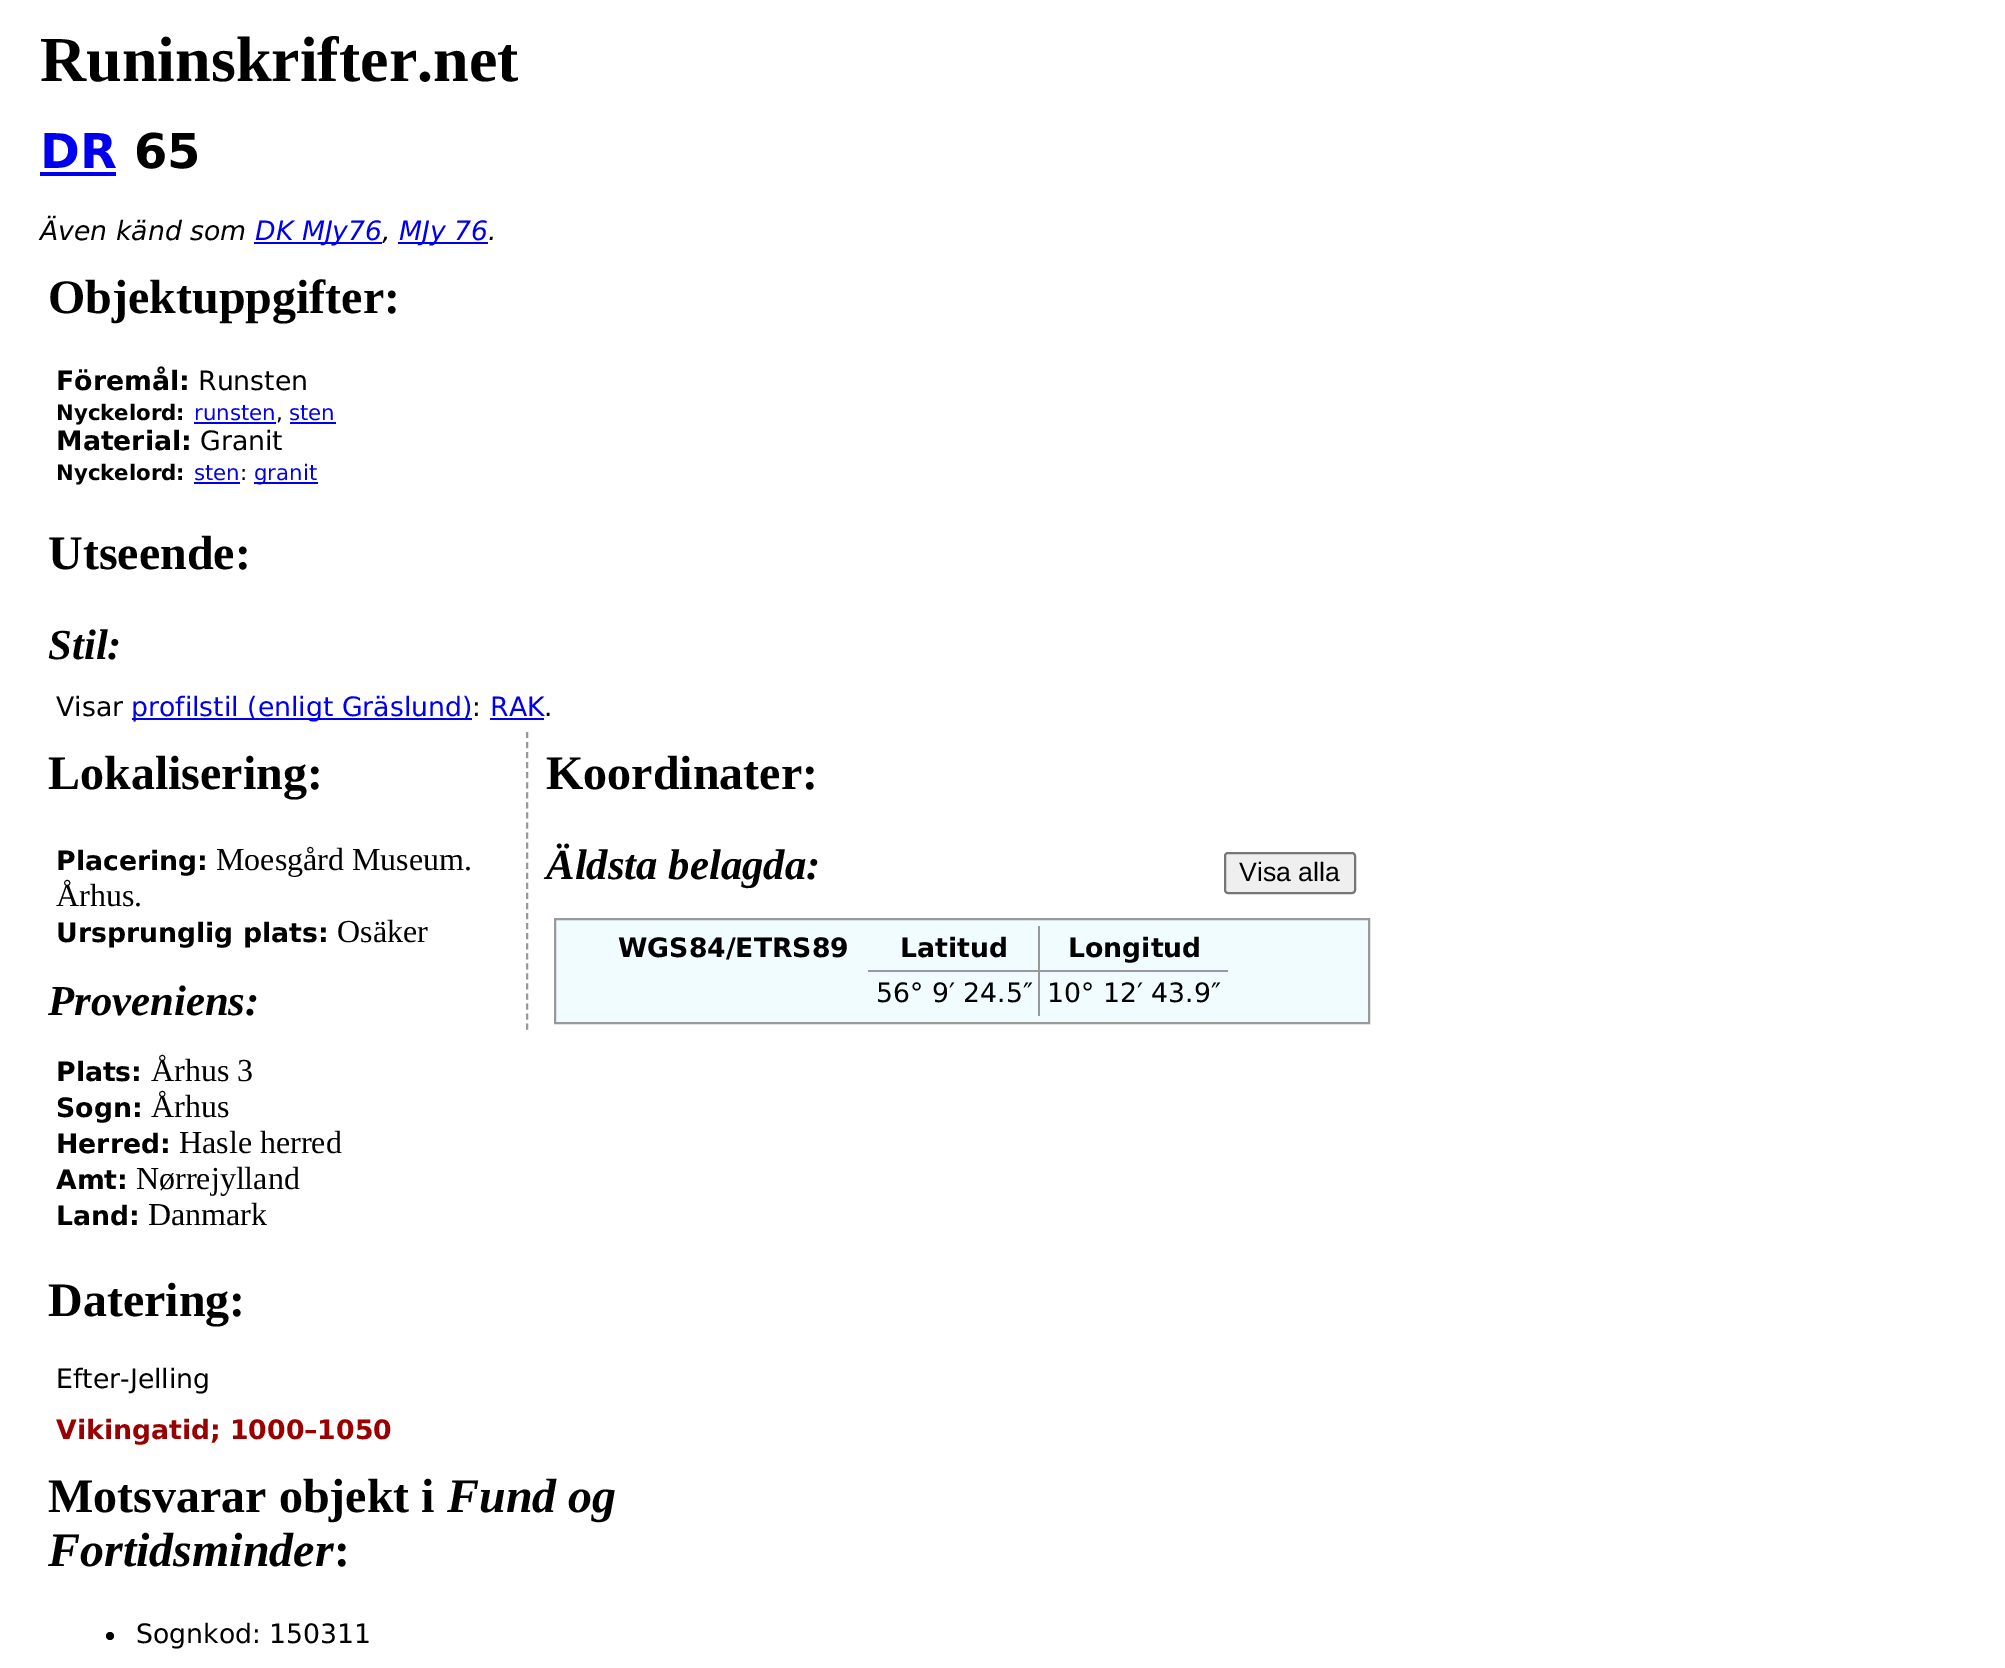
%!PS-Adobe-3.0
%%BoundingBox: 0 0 2005 1668
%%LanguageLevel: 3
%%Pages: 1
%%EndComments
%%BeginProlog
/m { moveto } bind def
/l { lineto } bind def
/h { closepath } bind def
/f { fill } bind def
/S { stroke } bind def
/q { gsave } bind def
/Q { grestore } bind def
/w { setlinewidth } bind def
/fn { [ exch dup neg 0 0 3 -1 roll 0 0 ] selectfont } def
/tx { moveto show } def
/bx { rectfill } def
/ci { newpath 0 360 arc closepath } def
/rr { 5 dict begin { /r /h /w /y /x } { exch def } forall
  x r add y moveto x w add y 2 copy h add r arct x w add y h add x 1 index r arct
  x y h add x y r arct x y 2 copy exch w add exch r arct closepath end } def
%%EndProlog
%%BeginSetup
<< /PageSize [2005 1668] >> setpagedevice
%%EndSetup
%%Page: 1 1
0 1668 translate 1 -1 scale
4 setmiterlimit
1 setgray
0 0 2005 1668 bx
/LiberationSerif-Bold 64 fn
0 setgray
(Runinskrifter.net) 40 81 tx
/DejaVuSans-Bold 48 fn
0 0 0.933 setrgbcolor
(DR) 40 168 tx
40 172 76 4 bx
0 setgray
(65) 134 168 tx
/DejaVuSans-Italic 26.7 fn
(Även känd som) 40 240 tx
0 0 0.933 setrgbcolor
254 242 128 2 bx
(DK MJy76) 255 240 tx
0 setgray
(,) 382 240 tx
0 0 0.933 setrgbcolor
398 242 90 2 bx
(MJy 76) 399 240 tx
0 setgray
(.) 488 240 tx
/LiberationSerif-Bold 48 fn
(Objektuppgifter:) 48 313 tx
/DejaVuSans-Bold 26.7 fn
(Föremål:) 56 390 tx
/DejaVuSans-Regular 26.7 fn
(Runsten) 198 390 tx
/DejaVuSans-Bold 21.25 fn
(Nyckelord:) 56 420 tx
/DejaVuSans-Regular 21.25 fn
0 0 0.933 setrgbcolor
(runsten) 194 420 tx
0 setgray
(,) 276 420 tx
0 0 0.933 setrgbcolor
194 422 82 2 bx
290 422 46 2 bx
(sten) 289 420 tx
/DejaVuSans-Bold 26.7 fn
0 setgray
(Material:) 56 450 tx
/DejaVuSans-Regular 26.7 fn
(Granit) 200 450 tx
/DejaVuSans-Bold 21.25 fn
(Nyckelord:) 56 480 tx
/DejaVuSans-Regular 21.25 fn
0 0 0.933 setrgbcolor
(sten) 194 480 tx
194 482 46 2 bx
0 setgray
(:) 240 480 tx
0 0 0.933 setrgbcolor
254 482 64 2 bx
(granit) 254 480 tx
/LiberationSerif-Bold 48 fn
0 setgray
(Utseende:) 48 569 tx
/LiberationSerif-BoldItalic 42.75 fn
(Stil:) 48 659 tx
/DejaVuSans-Regular 26.7 fn
(Visar) 56 716 tx
0 0 0.933 setrgbcolor
132 718 340 2 bx
(profilstil \(enligt Gräslund\)) 131 716 tx
0 setgray
(:) 472 716 tx
0 0 0.933 setrgbcolor
(RAK) 490 716 tx
490 718 54 2 bx
0 setgray
(.) 544 716 tx
/LiberationSerif-Bold 48 fn
(Lokalisering:) 48 789 tx
/DejaVuSans-Bold 26.7 fn
(Placering:) 56 870 tx
/LiberationSerif-Regular 32 fn
(Moesgård Museum.) 216 870 tx
(Århus.) 56 906 tx
/DejaVuSans-Bold 26.7 fn
(Ursprunglig plats:) 56 942 tx
/LiberationSerif-Regular 32 fn
(Osäker) 337 942 tx
/LiberationSerif-BoldItalic 42.75 fn
(Proveniens:) 48 1015 tx
/DejaVuSans-Bold 26.7 fn
(Plats:) 56 1081 tx
/LiberationSerif-Regular 32 fn
(Århus 3) 151 1081 tx
/DejaVuSans-Bold 26.7 fn
(Sogn:) 56 1117 tx
/LiberationSerif-Regular 32 fn
(Århus) 151 1117 tx
/DejaVuSans-Bold 26.7 fn
(Herred:) 56 1153 tx
/LiberationSerif-Regular 32 fn
(Hasle herred) 179 1153 tx
/DejaVuSans-Bold 26.7 fn
(Amt:) 56 1189 tx
/LiberationSerif-Regular 32 fn
(Nørrejylland) 136 1189 tx
/DejaVuSans-Bold 26.7 fn
(Land:) 56 1225 tx
/LiberationSerif-Regular 32 fn
(Danmark) 148 1225 tx
0.6 setgray
2 w
[6 4.06] 0 setdash
527 732 m 527 1030 l S
/LiberationSerif-Bold 48 fn
0 setgray
(Koordinater:) 546 789 tx
/LiberationSerif-BoldItalic 42.75 fn
(Äldsta belagda:) 546 879 tx
0.937 setgray
1225 853 130 40 3 rr q f Q
0.463 setgray
[] 0 setdash
S
/LiberationSans-Regular 26.7 fn
0 setgray
(Visa alla) 1239 881 tx
0.941 0.988 1 setrgbcolor
555 919 m 1369 919 l 1369 1023 l 555 1023 l h q f Q
0.6 setgray
S
/DejaVuSans-Bold 26.7 fn
0 setgray
(WGS84/ETRS89) 618 957 tx
(Latitud) 900 957 tx
(Longitud) 1068 957 tx
0.6 setgray
868 970 360 2 bx
/DejaVuSans-Regular 26.7 fn
0 setgray
(56° 9′ 24.5″) 876 1002 tx
0.6 setgray
1038 926 2 90 bx
0 setgray
(10° 12′ 43.9″) 1047 1002 tx
/LiberationSerif-Bold 48 fn
(Datering:) 48 1316 tx
/DejaVuSans-Regular 26.7 fn
(Efter-Jelling) 56 1388 tx
/DejaVuSans-Bold 26.7 fn
0.6 0 0 setrgbcolor
(Vikingatid; 1000–1050) 56 1439 tx
/LiberationSerif-Bold 48 fn
0 setgray
(Motsvarar objekt i) 48 1512 tx
/LiberationSerif-BoldItalic 48 fn
(Fund og) 447 1512 tx
(Fortidsminder) 48 1566 tx
/LiberationSerif-Bold 48 fn
(:) 334 1566 tx
110 1636 4 ci f
/DejaVuSans-Regular 26.7 fn
(Sognkod: 150311) 136 1643 tx
showpage
%%EOF
